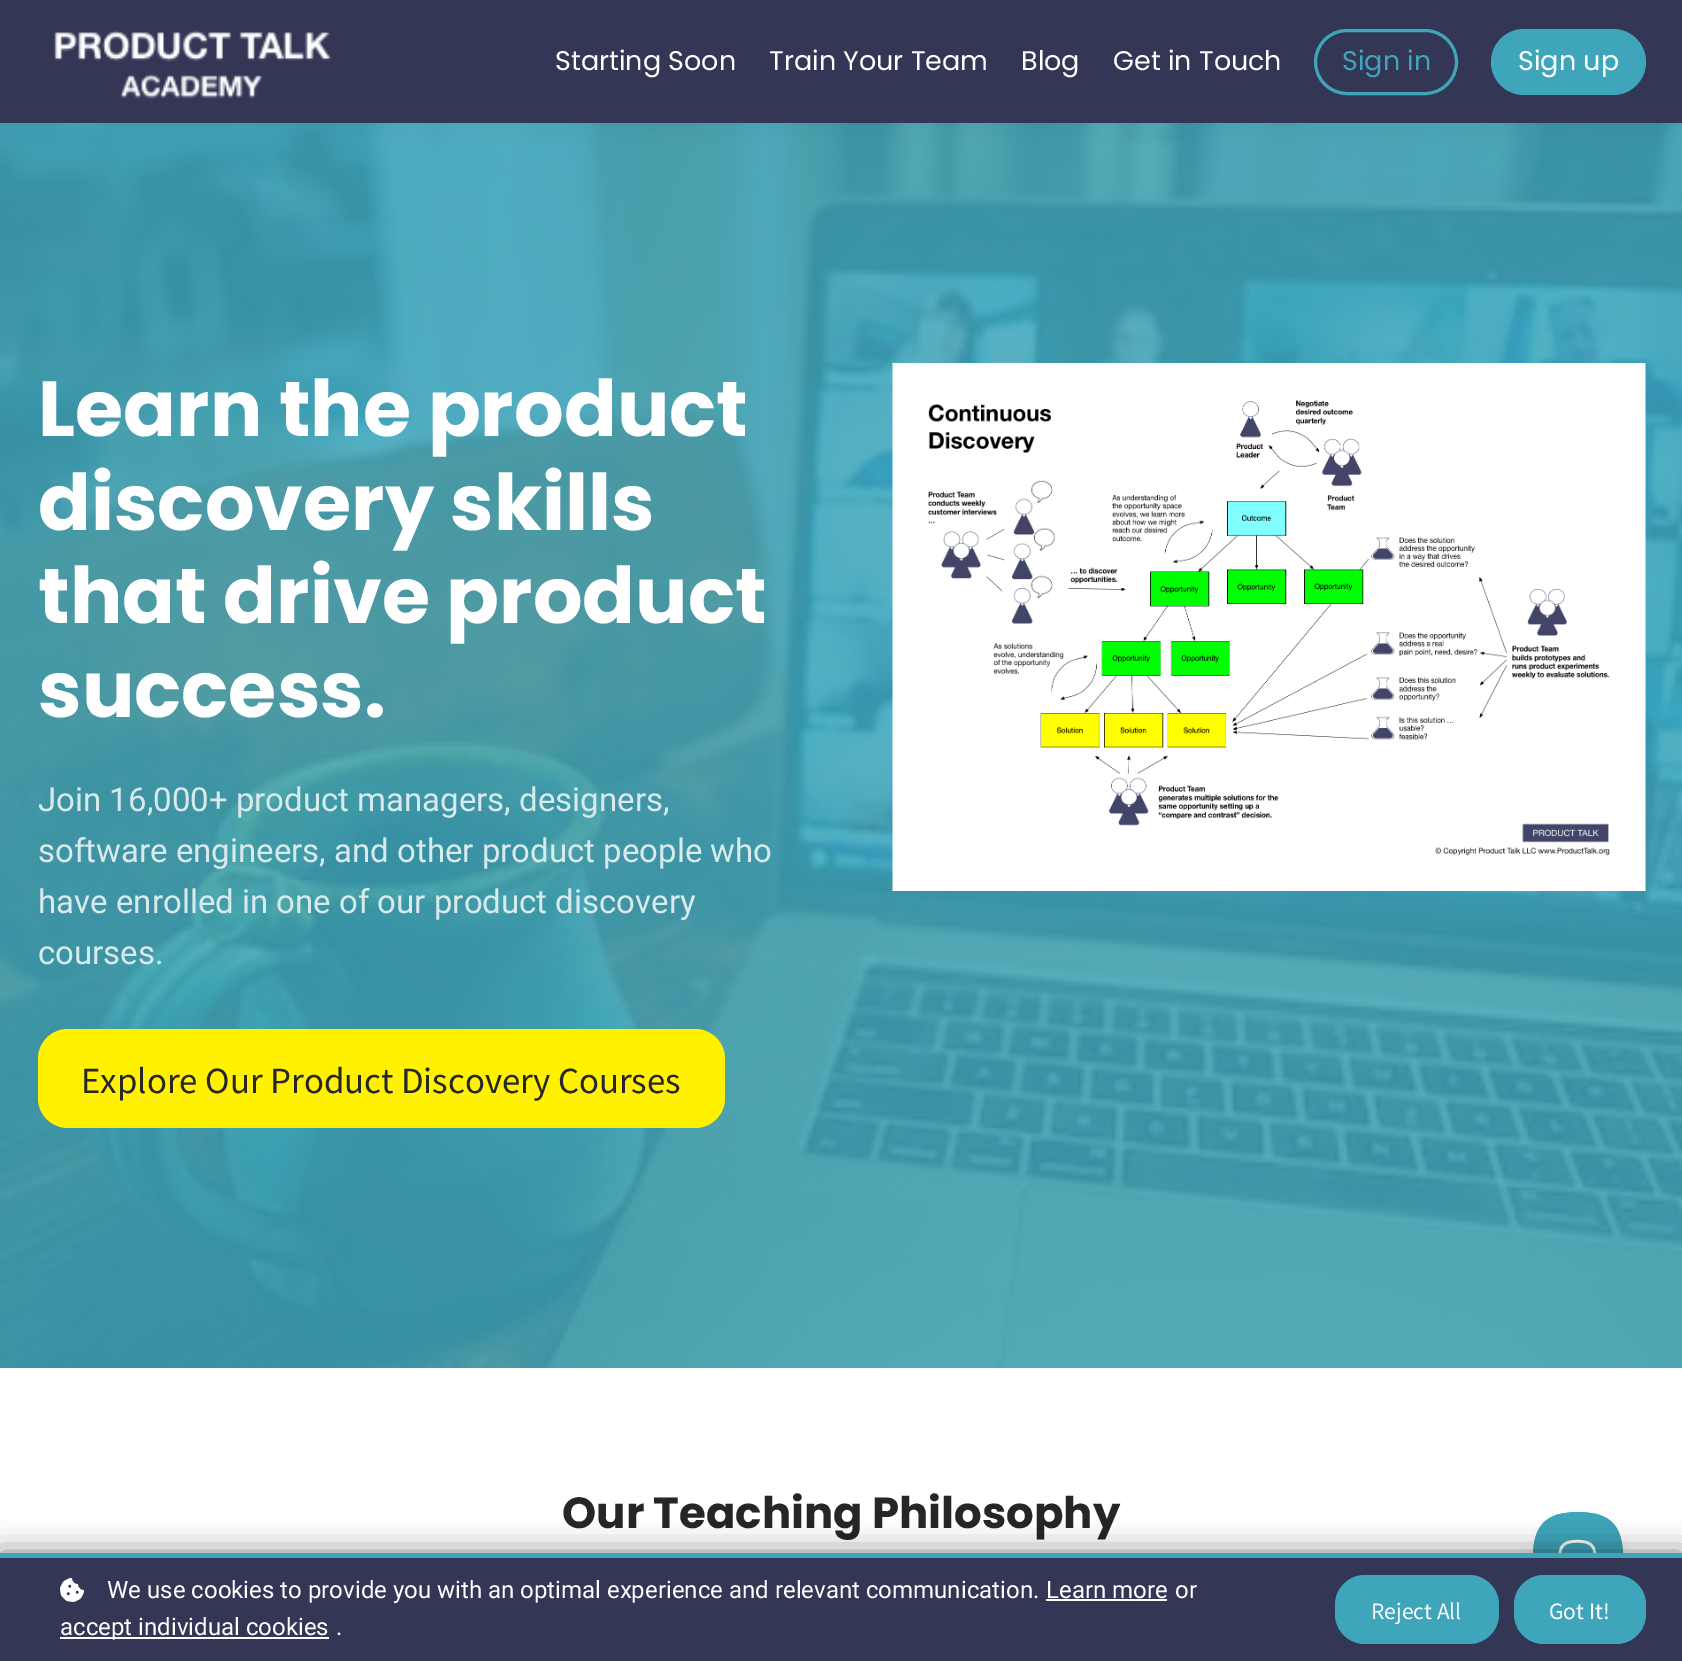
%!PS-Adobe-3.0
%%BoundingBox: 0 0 1682 1661
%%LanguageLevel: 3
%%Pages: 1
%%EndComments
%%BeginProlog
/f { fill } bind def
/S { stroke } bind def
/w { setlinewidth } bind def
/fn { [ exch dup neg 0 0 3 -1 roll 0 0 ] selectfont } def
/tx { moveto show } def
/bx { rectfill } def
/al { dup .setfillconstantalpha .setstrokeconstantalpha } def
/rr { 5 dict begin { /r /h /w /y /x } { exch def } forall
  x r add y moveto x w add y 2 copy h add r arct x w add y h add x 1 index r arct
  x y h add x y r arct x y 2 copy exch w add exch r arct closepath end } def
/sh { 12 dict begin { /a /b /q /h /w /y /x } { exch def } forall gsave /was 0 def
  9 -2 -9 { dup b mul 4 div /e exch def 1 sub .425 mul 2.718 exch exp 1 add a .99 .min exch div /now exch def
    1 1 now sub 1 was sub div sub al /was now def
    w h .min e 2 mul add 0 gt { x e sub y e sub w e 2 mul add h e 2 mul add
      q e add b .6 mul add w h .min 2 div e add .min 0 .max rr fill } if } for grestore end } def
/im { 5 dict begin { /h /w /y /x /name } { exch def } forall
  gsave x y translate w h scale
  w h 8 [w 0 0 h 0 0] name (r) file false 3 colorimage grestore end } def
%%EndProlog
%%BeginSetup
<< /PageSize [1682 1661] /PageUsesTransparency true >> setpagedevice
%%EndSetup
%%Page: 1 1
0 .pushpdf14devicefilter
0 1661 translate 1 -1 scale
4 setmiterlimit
1 setgray
0 0 1682 1661 bx
(image1.raw) 0 123 1682 1245 im
0 setgray
0 0 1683 123 0 11 0.05 sh
0.2 0.212 0.333 setrgbcolor
0 0 1682 123 bx
(image0.raw) 54 30 278 69 im
/Poppins-Regular 27 fn
1 setgray
(Starting Soon) 555 70 tx
(Train Your Team) 769 70 tx
(Blog) 1021 70 tx
(Get in Touch) 1113 70 tx
0.243 0.647 0.729 setrgbcolor
3 w
1315.5 30.5 141 63 31.5 rr S
(Sign in) 1342 70 tx
1491 29 155 66 33 rr f
1 setgray
(Sign up) 1518 70 tx
/Poppins-Bold 78 fn
(Learn the product) 38 436 tx
(discovery skills) 38 530 tx
(that drive product) 38 623 tx
(success.) 38 717 tx
/Roboto-Regular 33 fn
0.851 0.918 0.929 setrgbcolor
(Join 16,000+ product managers, designers,) 38 811 tx
(software engineers, and other product people who) 38 862 tx
(have enrolled in one of our product discovery) 38 913 tx
(courses.) 38 964 tx
1 0.945 0 setrgbcolor
38 1029 687 99 30 rr f
/NotoSansJP-Regular 33 fn
0.149 setgray
(Explore Our Product Discovery Courses) 81 1093 tx
(image2.raw) 892 363 754 528 im
/Poppins-Bold 43.5 fn
(Our Teaching Philosophy) 562 1528 tx
0 setgray
1533 1518 90 90 45 5 0.1 sh
(image3.raw) 1533 1512 90 41 im
0 1553 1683 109 0 15 0.5 sh
0.2 0.212 0.333 setrgbcolor
0 1558 1682 103 bx
0.243 0.647 0.729 setrgbcolor
0 1553 1682 5 bx
(image4.raw) 60 1578 24 24 im
/Roboto-Regular 24 fn
1 setgray
(We use cookies to provide you with an optimal experience and relevant communication.) 107 1598 tx
(Learn more) 1046 1598 tx
1046 1599 121 2 bx
(or) 1175 1598 tx
60 1637 269 2 bx
(accept individual cookies) 60 1635 tx
(.) 336 1635 tx
0.243 0.647 0.729 setrgbcolor
1335 1575 164 69 30 rr f
/NotoSansJP-Regular 21 fn
1 setgray
(Reject All) 1371 1619 tx
0.243 0.647 0.729 setrgbcolor
1514 1575 132 69 30 rr f
1 setgray
(Got It!) 1549 1619 tx
.poppdf14devicefilter showpage
%%EOF
